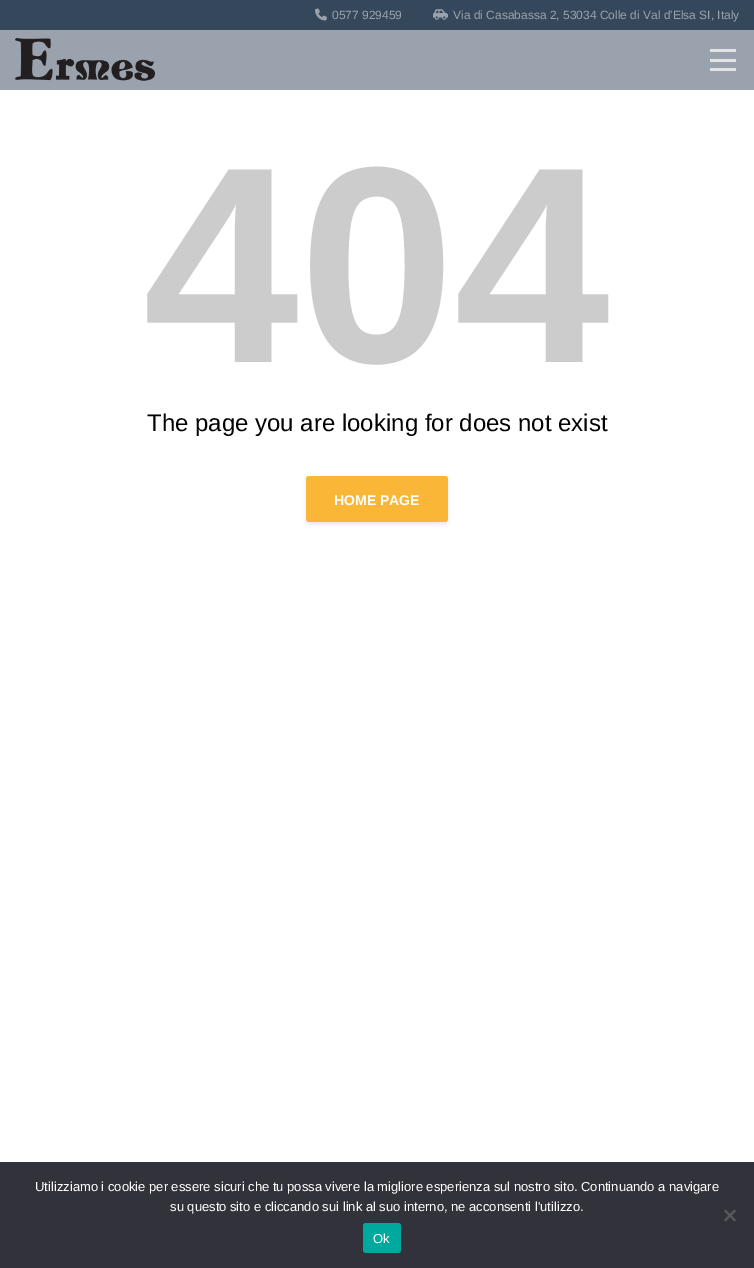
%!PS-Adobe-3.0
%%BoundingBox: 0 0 754 1268
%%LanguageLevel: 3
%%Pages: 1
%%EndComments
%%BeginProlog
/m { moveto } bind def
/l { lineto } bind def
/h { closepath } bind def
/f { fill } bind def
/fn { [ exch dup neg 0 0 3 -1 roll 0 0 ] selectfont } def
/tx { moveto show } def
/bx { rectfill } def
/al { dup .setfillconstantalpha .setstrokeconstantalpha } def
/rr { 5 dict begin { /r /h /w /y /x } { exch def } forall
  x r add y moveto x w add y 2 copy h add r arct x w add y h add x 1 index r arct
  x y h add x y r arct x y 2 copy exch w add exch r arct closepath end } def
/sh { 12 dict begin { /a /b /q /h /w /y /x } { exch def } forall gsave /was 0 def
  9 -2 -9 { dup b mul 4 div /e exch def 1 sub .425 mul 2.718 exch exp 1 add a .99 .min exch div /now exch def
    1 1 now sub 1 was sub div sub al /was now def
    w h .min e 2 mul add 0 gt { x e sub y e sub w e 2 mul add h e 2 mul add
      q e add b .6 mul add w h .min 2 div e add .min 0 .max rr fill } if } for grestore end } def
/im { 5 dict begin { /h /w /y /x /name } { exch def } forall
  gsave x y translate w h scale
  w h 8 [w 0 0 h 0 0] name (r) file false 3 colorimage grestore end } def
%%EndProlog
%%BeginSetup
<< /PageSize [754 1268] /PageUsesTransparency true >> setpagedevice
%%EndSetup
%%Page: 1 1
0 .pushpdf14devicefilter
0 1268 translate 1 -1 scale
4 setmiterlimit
1 setgray
0 0 754 1268 bx
0.208 0.278 0.353 setrgbcolor
0 0 754 30 bx
(image0.raw) 315 8 12 13 im
/LiberationSans-Regular 12 fn
0.604 0.639 0.678 setrgbcolor
(0577 929459) 332 19 tx
(image1.raw) 433 9 15 11 im
(Via di Casabassa 2, 53034 Colle di Val d'Elsa SI, Italy) 453 19 tx
0 30 754 60 bx
(image2.raw) 15 38 140 43 im
0.882 0.89 0.902 setrgbcolor
710 49 26 3 bx
710 68 26 3 bx
710 59 26 3 bx
/LiberationSans-Bold 280 fn
0.8 setgray
(404) 143 362 tx
/LiberationSans-Regular 24 fn
0.004 setgray
(The page you are looking for does not exist) 147 431 tx
0 setgray
306 478 142 46 3 2 0.1 sh
0.98 0.714 0.216 setrgbcolor
306 476 142 46 3 rr f
/LiberationSans-Bold 14 fn
1 setgray
(HOME PAGE) 334 505 tx
0.196 0.196 0.227 setrgbcolor
0 1162 754 106 bx
/LiberationSans-Regular 13 fn
1 setgray
(Utilizziamo i cookie per essere sicuri che tu possa vivere la migliore esperienza sul nostro sito. Continuando a navigare) 35 1191 tx
(su questo sito e cliccando sui link al suo interno, ne acconsenti l'utilizzo.) 170 1211 tx
0.349 0.349 0.365 setrgbcolor
734.5 1209.5 m 736 1211 l 725.5 1221.5 l 724 1220 l h f
724 1211 m 725.5 1209.5 l 736 1220 l 734.5 1221.5 l h f
0 0.663 0.616 setrgbcolor
363 1223 38 30 3 rr f
1 setgray
(Ok) 373 1243 tx
.poppdf14devicefilter showpage
%%EOF
